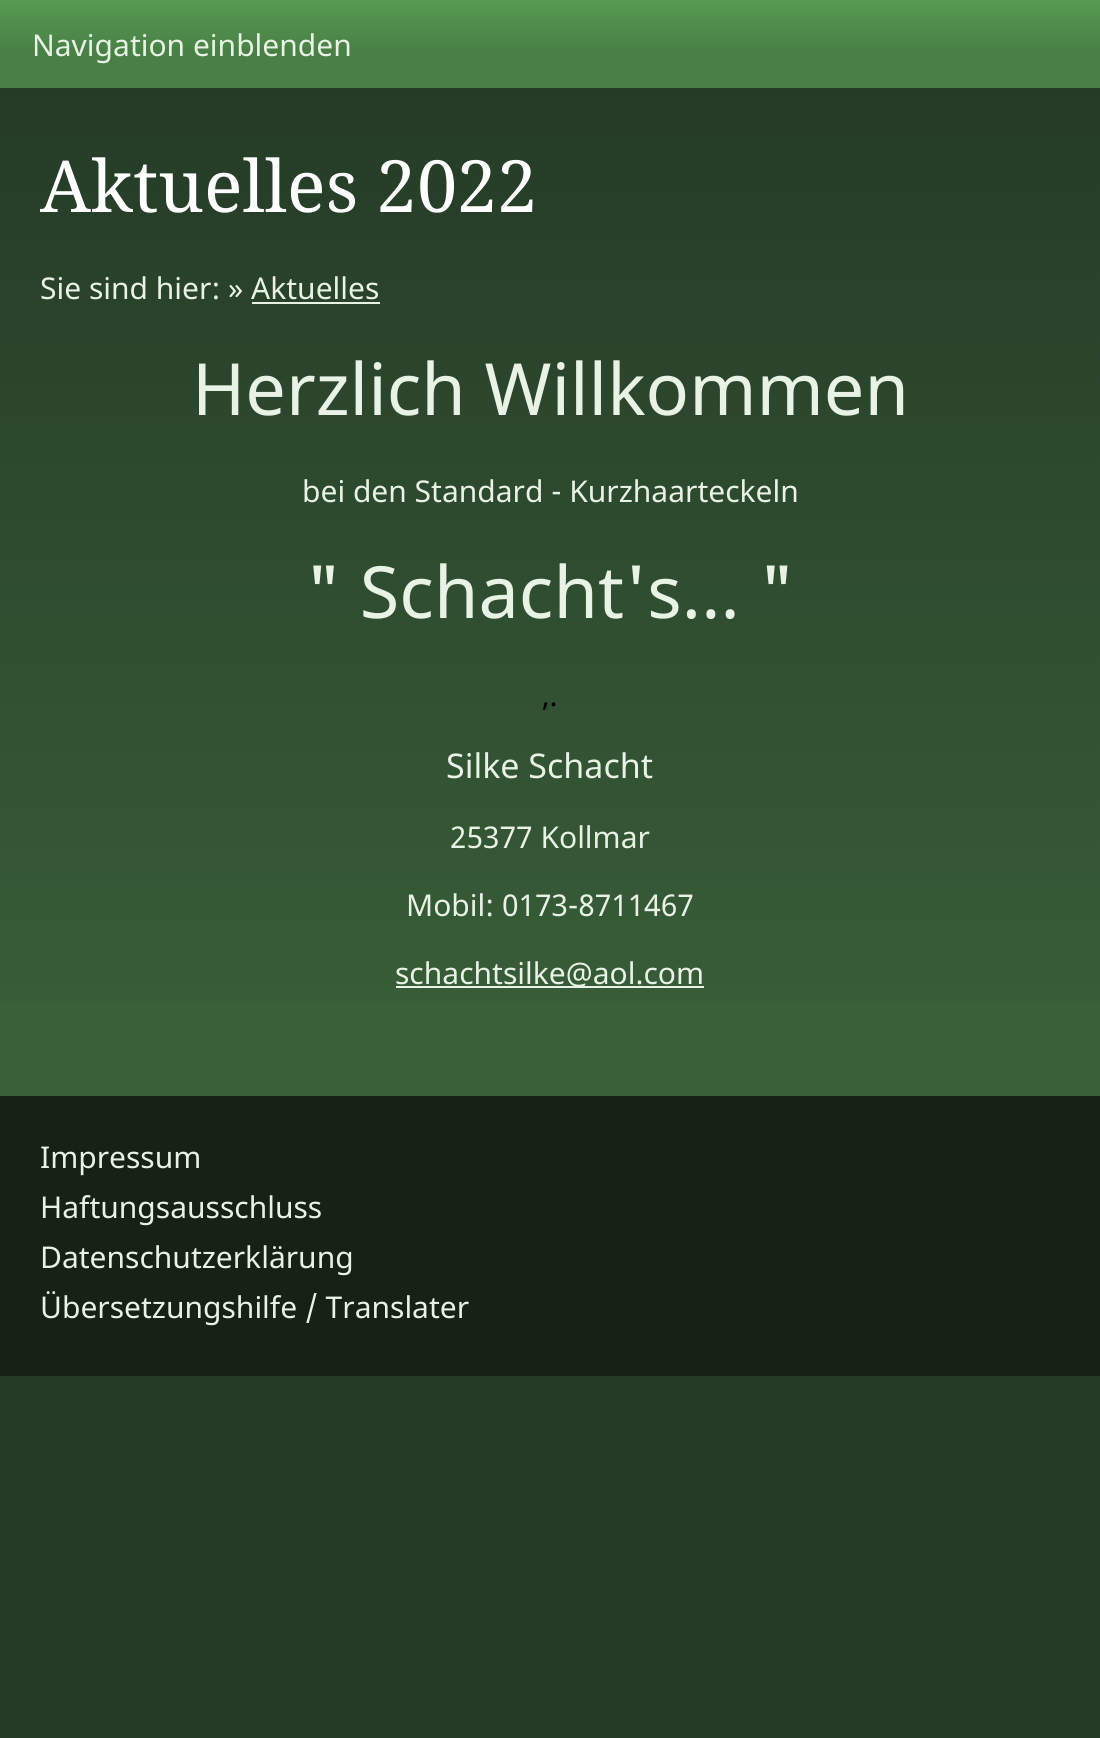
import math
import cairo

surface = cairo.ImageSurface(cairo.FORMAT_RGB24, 1100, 1738)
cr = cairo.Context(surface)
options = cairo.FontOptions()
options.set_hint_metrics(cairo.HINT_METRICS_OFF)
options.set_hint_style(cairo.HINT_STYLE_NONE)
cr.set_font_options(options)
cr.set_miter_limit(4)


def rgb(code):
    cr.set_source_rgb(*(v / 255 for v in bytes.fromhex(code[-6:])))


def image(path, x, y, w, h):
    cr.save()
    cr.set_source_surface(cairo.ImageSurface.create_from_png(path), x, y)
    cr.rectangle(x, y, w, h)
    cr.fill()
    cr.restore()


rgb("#253b26")
cr.paint()
rgb("#488045")
cr.rectangle(0, 47, 1100, 41)
cr.fill()
image("img/1.png", 0, 0, 1100, 47)
rgb("#3a603a")
cr.rectangle(0, 1001, 1100, 95)
cr.fill()
image("img/2.png", 0, 88, 1100, 913)
for x, y, w, h, color in [
    (252, 302, 128, 2, "#e8f2e5"),
    (396, 986, 308, 2, "#e8f2e5"),
    (0, 1096, 1100, 280, "#152215"),
]:
    rgb(color)
    cr.rectangle(x, y, w, h)
    cr.fill()
cr.select_font_face("Noto Sans")
cr.set_font_size(30)
rgb("#e8f2e5")
cr.move_to(32, 56)
cr.show_text("Navigation einblenden")
cr.select_font_face("Noto Serif")
cr.set_font_size(72)
rgb("#ffffff")
cr.move_to(40, 212)
cr.show_text("Aktuelles 2022")
cr.select_font_face("Noto Sans")
cr.set_font_size(30)
rgb("#e8f2e5")
cr.move_to(40, 299)
cr.show_text("Sie sind hier: » Aktuelles")
cr.set_font_size(72)
cr.move_to(192, 415)
cr.show_text("Herzlich Willkommen")
cr.set_font_size(30)
cr.move_to(302, 502)
cr.show_text("bei den Standard - Kurzhaarteckeln")
cr.set_font_size(72)
cr.move_to(305, 618)
cr.show_text("\" Schacht's... \"")
cr.set_font_size(30)
rgb("#000000")
cr.move_to(542, 706)
cr.show_text(",.")
cr.set_font_size(34)
rgb("#e8f2e5")
cr.move_to(446, 778)
cr.show_text("Silke Schacht")
cr.set_font_size(30)
for x, y, s in [
    (450, 848, "25377 Kollmar"),
    (406, 916, "Mobil: 0173-8711467"),
    (395, 984, "schachtsilke@aol.com"),
    (40, 1168, "Impressum"),
    (40, 1218, "Haftungsausschluss"),
    (40, 1268, "Datenschutzerklärung"),
    (40, 1318, "Übersetzungshilfe / Translater"),
]:
    cr.move_to(x, y)
    cr.show_text(s)
surface.write_to_png("page.png")
